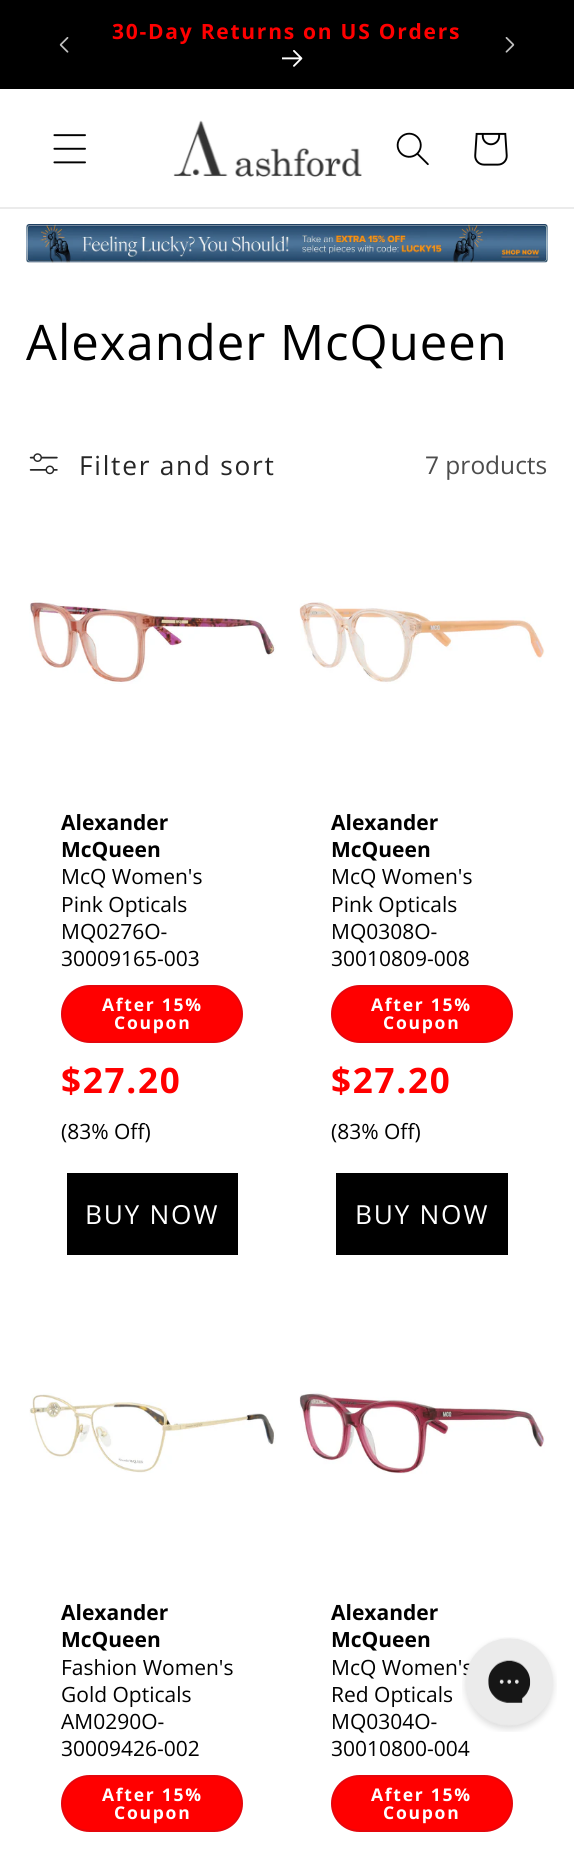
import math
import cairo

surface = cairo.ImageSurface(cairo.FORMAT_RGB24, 574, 1860)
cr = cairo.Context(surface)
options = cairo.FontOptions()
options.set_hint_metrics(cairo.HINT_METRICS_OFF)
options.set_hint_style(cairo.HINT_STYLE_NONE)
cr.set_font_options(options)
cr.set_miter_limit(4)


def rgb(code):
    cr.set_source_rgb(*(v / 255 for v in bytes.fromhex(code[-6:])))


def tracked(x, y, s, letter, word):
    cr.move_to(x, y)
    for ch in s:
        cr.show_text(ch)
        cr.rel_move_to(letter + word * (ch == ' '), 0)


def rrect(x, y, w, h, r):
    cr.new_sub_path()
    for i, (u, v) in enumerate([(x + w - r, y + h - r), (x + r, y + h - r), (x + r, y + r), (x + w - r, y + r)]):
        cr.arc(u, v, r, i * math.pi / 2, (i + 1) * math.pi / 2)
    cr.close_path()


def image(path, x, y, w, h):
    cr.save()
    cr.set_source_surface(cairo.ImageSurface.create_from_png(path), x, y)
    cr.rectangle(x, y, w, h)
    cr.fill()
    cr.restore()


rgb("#ffffff")
cr.paint()
rgb("#000000")
cr.rectangle(0, 0, 574, 89)
cr.fill()
image("img/1.png", 59, 37, 10, 16)
image("img/2.png", 282, 50, 21, 17)
image("img/3.png", 505, 37, 10, 16)
rgb("#ebebeb")
cr.rectangle(0, 207, 574, 2)
cr.fill()
image("img/4.png", 53, 134, 33, 30)
image("img/5.png", 173, 120, 189, 57)
image("img/6.png", 396, 132, 33, 34)
image("img/7.png", 474, 132, 34, 34)
image("img/8.png", 26, 224, 522, 39)
image("img/9.png", 29, 453, 29, 22)
image("img/10.png", 29, 600, 247, 84)
rgb("#ff0000")
rrect(61, 985, 182, 58, 29)
cr.fill()
rrect(62, 986, 180, 56, 28)
cr.set_source_rgba(0, 0.263, 0.49, 0.1)
cr.stroke()
rgb("#000000")
cr.rectangle(67, 1173, 171, 82)
cr.fill()
image("img/11.png", 299, 600, 246, 84)
rgb("#ff0000")
rrect(331, 985, 182, 58, 29)
cr.fill()
rrect(332, 986, 180, 56, 28)
cr.set_source_rgba(0, 0.263, 0.49, 0.1)
cr.stroke()
rgb("#000000")
cr.rectangle(336, 1173, 172, 82)
cr.fill()
image("img/12.png", 29, 1393, 247, 80)
rgb("#ff0000")
rrect(61, 1775, 182, 57, 28.5)
cr.fill()
rrect(62, 1776, 180, 55, 27.5)
cr.set_source_rgba(0, 0.263, 0.49, 0.1)
cr.stroke()
image("img/13.png", 299, 1391, 246, 83)
rgb("#ff0000")
rrect(331, 1775, 182, 57, 28.5)
cr.fill()
rrect(332, 1776, 180, 55, 27.5)
cr.set_source_rgba(0, 0.263, 0.49, 0.1)
cr.stroke()
cr.select_font_face("Open Sans", cairo.FONT_SLANT_NORMAL, cairo.FONT_WEIGHT_BOLD)
cr.set_font_size(21)
rgb("#ff0000")
tracked(112, 39, "30-Day Returns on US Orders", 1.75, 0)
cr.select_font_face("Open Sans")
cr.set_font_size(49)
rgb("#000000")
tracked(26, 360, "Alexander McQueen", 1, 0)
cr.set_font_size(26.25)
rgb("#262626")
tracked(79, 475, "Filter and sort", 1.75, 0)
cr.set_font_size(24.5)
rgb("#4d4d4d")
cr.move_to(425, 474)
cr.show_text("7 products")
cr.select_font_face("Open Sans", cairo.FONT_SLANT_NORMAL, cairo.FONT_WEIGHT_BOLD)
cr.set_font_size(21)
rgb("#000000")
cr.move_to(61, 830)
cr.show_text("Alexander")
cr.move_to(61, 857)
cr.show_text("McQueen")
cr.select_font_face("Open Sans")
for x, y, s in [
    (61, 884, "McQ Women's"),
    (61, 912, "Pink Opticals"),
    (61, 939, "MQ0276O-"),
    (61, 966, "30009165-003"),
]:
    cr.move_to(x, y)
    cr.show_text(s)
cr.select_font_face("Open Sans", cairo.FONT_SLANT_NORMAL, cairo.FONT_WEIGHT_BOLD)
cr.set_font_size(17.5)
rgb("#ffffff")
tracked(102, 1011, "After 15%", 1.75, 0)
tracked(114, 1029, "Coupon", 1.75, 0)
cr.set_font_size(35)
rgb("#ff0000")
tracked(61, 1093, "$27.20", 1.75, 0)
cr.select_font_face("Open Sans")
cr.set_font_size(21)
rgb("#000000")
cr.move_to(61, 1139)
cr.show_text("(83% Off)")
cr.set_font_size(26.25)
rgb("#ffffff")
tracked(85, 1224, "BUY NOW", 1.75, 0)
cr.select_font_face("Open Sans", cairo.FONT_SLANT_NORMAL, cairo.FONT_WEIGHT_BOLD)
cr.set_font_size(21)
rgb("#000000")
cr.move_to(331, 830)
cr.show_text("Alexander")
cr.move_to(331, 857)
cr.show_text("McQueen")
cr.select_font_face("Open Sans")
for x, y, s in [
    (331, 884, "McQ Women's"),
    (331, 912, "Pink Opticals"),
    (331, 939, "MQ0308O-"),
    (331, 966, "30010809-008"),
]:
    cr.move_to(x, y)
    cr.show_text(s)
cr.select_font_face("Open Sans", cairo.FONT_SLANT_NORMAL, cairo.FONT_WEIGHT_BOLD)
cr.set_font_size(17.5)
rgb("#ffffff")
tracked(371, 1011, "After 15%", 1.75, 0)
tracked(383, 1029, "Coupon", 1.75, 0)
cr.set_font_size(35)
rgb("#ff0000")
tracked(331, 1093, "$27.20", 1.75, 0)
cr.select_font_face("Open Sans")
cr.set_font_size(21)
rgb("#000000")
cr.move_to(331, 1139)
cr.show_text("(83% Off)")
cr.set_font_size(26.25)
rgb("#ffffff")
tracked(355, 1224, "BUY NOW", 1.75, 0)
cr.select_font_face("Open Sans", cairo.FONT_SLANT_NORMAL, cairo.FONT_WEIGHT_BOLD)
cr.set_font_size(21)
rgb("#000000")
cr.move_to(61, 1620)
cr.show_text("Alexander")
cr.move_to(61, 1647)
cr.show_text("McQueen")
cr.select_font_face("Open Sans")
for x, y, s in [
    (61, 1675, "Fashion Women's"),
    (61, 1702, "Gold Opticals"),
    (61, 1729, "AM0290O-"),
    (61, 1756, "30009426-002"),
]:
    cr.move_to(x, y)
    cr.show_text(s)
cr.select_font_face("Open Sans", cairo.FONT_SLANT_NORMAL, cairo.FONT_WEIGHT_BOLD)
cr.set_font_size(17.5)
rgb("#ffffff")
tracked(102, 1801, "After 15%", 1.75, 0)
tracked(114, 1819, "Coupon", 1.75, 0)
cr.set_font_size(21)
rgb("#000000")
cr.move_to(331, 1620)
cr.show_text("Alexander")
cr.move_to(331, 1647)
cr.show_text("McQueen")
cr.select_font_face("Open Sans")
for x, y, s in [
    (331, 1675, "McQ Women's"),
    (331, 1702, "Red Opticals"),
    (331, 1729, "MQ0304O-"),
    (331, 1756, "30010800-004"),
]:
    cr.move_to(x, y)
    cr.show_text(s)
cr.select_font_face("Open Sans", cairo.FONT_SLANT_NORMAL, cairo.FONT_WEIGHT_BOLD)
cr.set_font_size(17.5)
rgb("#ffffff")
tracked(371, 1801, "After 15%", 1.75, 0)
tracked(383, 1819, "Coupon", 1.75, 0)
image("img/14.png", 462, 1637, 95, 95)
surface.write_to_png("page.png")
